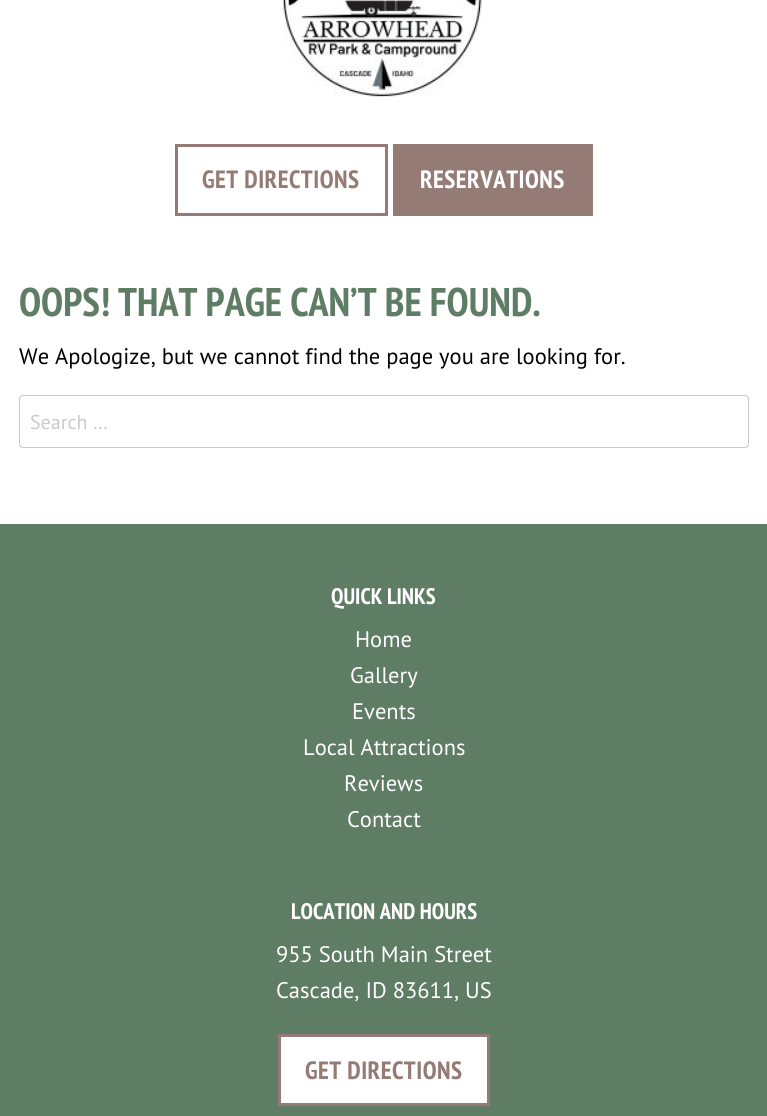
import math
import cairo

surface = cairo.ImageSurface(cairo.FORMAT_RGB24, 767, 1116)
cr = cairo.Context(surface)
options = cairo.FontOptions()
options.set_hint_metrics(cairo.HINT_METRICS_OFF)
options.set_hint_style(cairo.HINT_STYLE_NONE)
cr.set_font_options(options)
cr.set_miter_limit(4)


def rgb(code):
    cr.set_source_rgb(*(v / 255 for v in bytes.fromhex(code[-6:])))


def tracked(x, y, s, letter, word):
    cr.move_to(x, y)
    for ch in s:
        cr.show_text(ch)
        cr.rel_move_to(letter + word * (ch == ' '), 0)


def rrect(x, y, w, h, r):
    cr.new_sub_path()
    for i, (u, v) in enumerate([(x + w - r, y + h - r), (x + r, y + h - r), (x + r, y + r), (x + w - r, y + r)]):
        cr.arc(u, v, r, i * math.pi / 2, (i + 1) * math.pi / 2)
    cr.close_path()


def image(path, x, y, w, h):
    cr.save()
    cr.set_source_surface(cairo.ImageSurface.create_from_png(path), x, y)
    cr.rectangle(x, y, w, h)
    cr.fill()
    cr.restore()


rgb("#ffffff")
cr.paint()
image("img/1.png", 283, 0, 199, 97)
cr.rectangle(176.5, 145.5, 210, 69)
rgb("#947b75")
cr.set_line_width(3)
cr.stroke()
cr.rectangle(393, 144, 200, 72)
cr.fill()
rrect(19.5, 395.5, 729, 52, 3.5)
rgb("#cacaca")
cr.set_line_width(1)
cr.stroke()
rgb("#5f7c64")
cr.rectangle(0, 524, 767, 592)
cr.fill()
rgb("#ffffff")
cr.rectangle(279.5, 1035.5, 209, 69)
cr.fill_preserve()
rgb("#947b75")
cr.set_line_width(3)
cr.stroke()
cr.select_font_face("PT Sans Narrow", cairo.FONT_SLANT_NORMAL, cairo.FONT_WEIGHT_BOLD)
cr.set_font_size(25)
tracked(202, 188, "GET DIRECTIONS", 0.5, 0)
rgb("#ffffff")
tracked(420, 188, "RESERVATIONS", 0.5, 0)
cr.set_font_size(40)
rgb("#5f7c64")
cr.move_to(19, 316)
cr.show_text("OOPS! THAT PAGE CAN’T BE FOUND.")
cr.select_font_face("PT Sans")
cr.set_font_size(22.5)
rgb("#010101")
cr.move_to(19, 364)
cr.show_text("We Apologize, but we cannot find the page you are looking for.")
cr.set_font_size(20)
rgb("#cacaca")
cr.move_to(30, 429)
cr.show_text("Search …")
cr.select_font_face("PT Sans Narrow", cairo.FONT_SLANT_NORMAL, cairo.FONT_WEIGHT_BOLD)
cr.set_font_size(22.5)
rgb("#ffffff")
cr.move_to(331, 604)
cr.show_text("QUICK LINKS")
cr.select_font_face("PT Sans")
for x, y, s in [
    (355, 647, "Home"),
    (350, 683, "Gallery"),
    (352, 719, "Events"),
    (303, 755, "Local Attractions"),
    (344, 791, "Reviews"),
    (347, 827, "Contact"),
]:
    cr.move_to(x, y)
    cr.show_text(s)
cr.select_font_face("PT Sans Narrow", cairo.FONT_SLANT_NORMAL, cairo.FONT_WEIGHT_BOLD)
cr.move_to(291, 919)
cr.show_text("LOCATION AND HOURS")
cr.select_font_face("PT Sans")
cr.move_to(276, 962)
cr.show_text("955 South Main Street")
cr.move_to(276, 998)
cr.show_text("Cascade, ID 83611, US")
cr.select_font_face("PT Sans Narrow", cairo.FONT_SLANT_NORMAL, cairo.FONT_WEIGHT_BOLD)
cr.set_font_size(25)
rgb("#947b75")
tracked(305, 1079, "GET DIRECTIONS", 0.5, 0)
surface.write_to_png("page.png")
